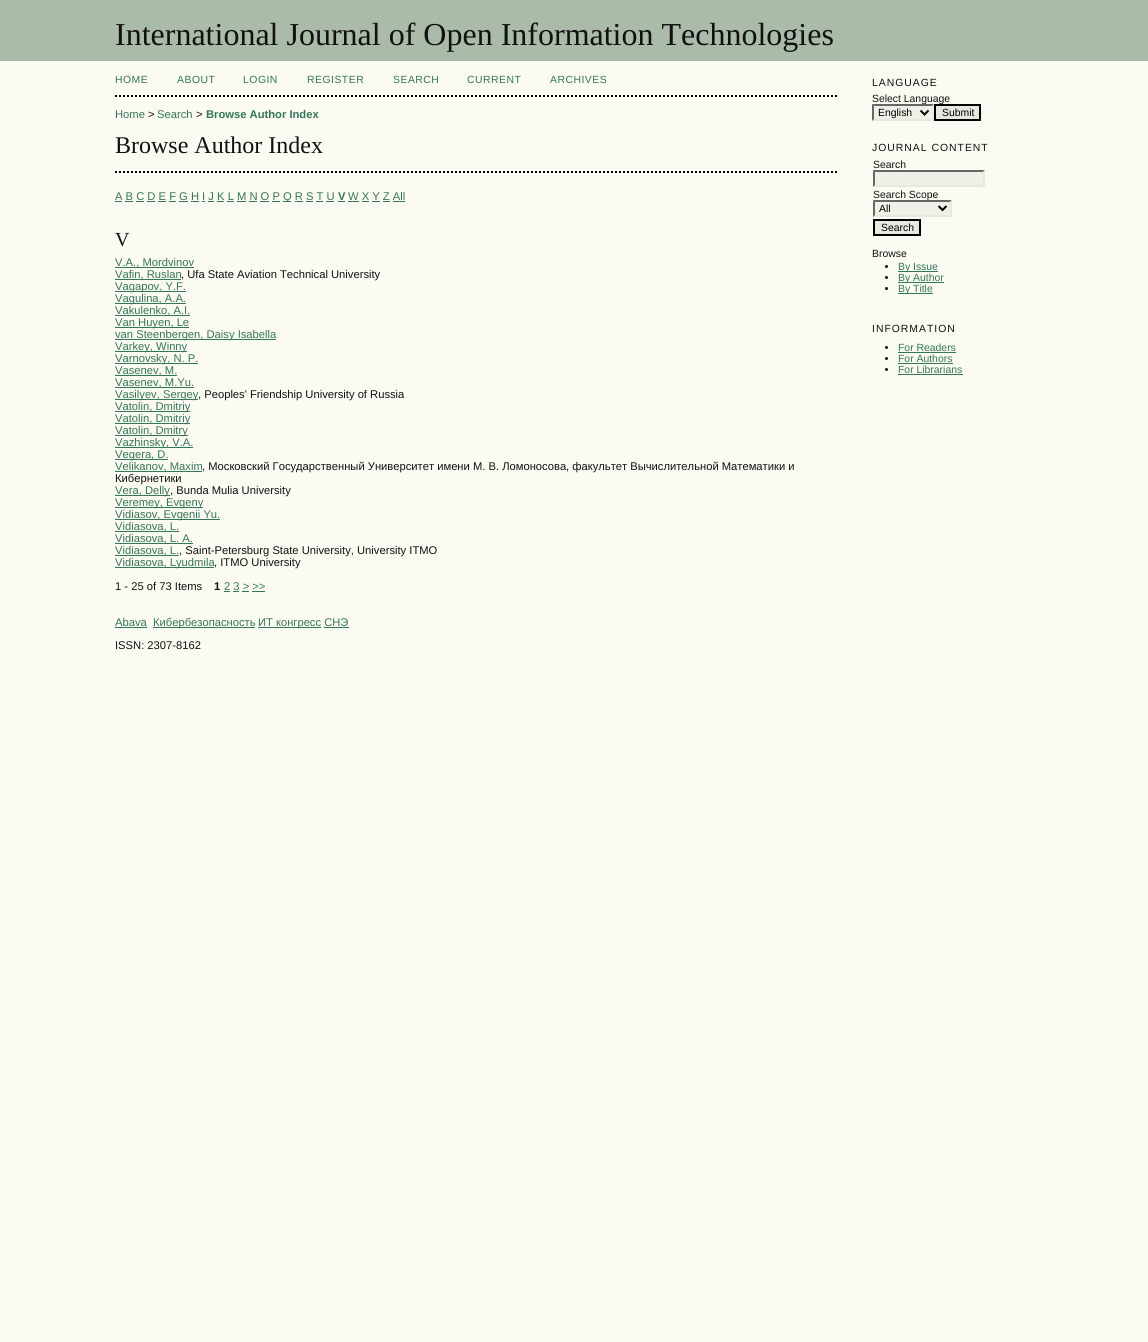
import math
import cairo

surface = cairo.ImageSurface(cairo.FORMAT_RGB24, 1148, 1342)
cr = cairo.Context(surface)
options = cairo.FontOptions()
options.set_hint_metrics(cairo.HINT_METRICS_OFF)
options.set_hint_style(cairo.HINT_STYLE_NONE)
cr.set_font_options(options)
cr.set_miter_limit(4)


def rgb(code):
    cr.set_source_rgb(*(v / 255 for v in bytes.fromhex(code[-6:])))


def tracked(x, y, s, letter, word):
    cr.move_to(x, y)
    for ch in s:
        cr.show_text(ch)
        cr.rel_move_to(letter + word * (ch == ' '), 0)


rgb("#fbfbf3")
cr.paint()
rgb("#aabbaa")
cr.rectangle(0, 0, 1148, 61)
cr.fill()
cr.new_path()
cr.move_to(115, 96)
cr.line_to(838, 96)
rgb("#000000")
cr.set_dash([2, 2])
cr.stroke()
cr.new_path()
cr.move_to(115, 172)
cr.line_to(838, 172)
cr.stroke()
for x, y, w, h, color in [
    (115, 201, 7, 1, "#337755"),
    (283, 201, 8, 1, "#337755"),
    (338, 201, 7, 1, "#337755"),
    (348, 201, 11, 1, "#337755"),
    (125, 201, 8, 1, "#337755"),
    (136, 201, 8, 1, "#337755"),
    (147, 201, 8, 1, "#337755"),
    (158, 201, 8, 1, "#337755"),
    (169, 201, 7, 1, "#337755"),
    (179, 201, 9, 1, "#337755"),
    (191, 201, 8, 1, "#337755"),
    (202, 201, 3, 1, "#337755"),
    (208, 201, 6, 1, "#337755"),
    (217, 201, 7, 1, "#337755"),
    (227, 201, 7, 1, "#337755"),
    (237, 201, 9, 1, "#337755"),
    (249, 201, 8, 1, "#337755"),
    (260, 201, 9, 1, "#337755"),
    (272, 201, 8, 1, "#337755"),
    (295, 201, 8, 1, "#337755"),
    (306, 201, 7, 1, "#337755"),
    (316, 201, 7, 1, "#337755"),
    (326, 201, 8, 1, "#337755"),
    (362, 201, 7, 1, "#337755"),
    (372, 201, 8, 1, "#337755"),
    (383, 201, 7, 1, "#337755"),
    (393, 201, 12, 1, "#337755"),
    (115, 267, 79, 1, "#337755"),
    (115, 279, 66, 1, "#337755"),
    (115, 291, 71, 1, "#337755"),
    (115, 303, 71, 1, "#337755"),
    (115, 315, 75, 1, "#337755"),
    (115, 327, 74, 1, "#337755"),
    (115, 339, 161, 1, "#337755"),
    (115, 351, 72, 1, "#337755"),
    (115, 363, 83, 1, "#337755"),
    (115, 375, 62, 1, "#337755"),
    (115, 387, 79, 1, "#337755"),
    (115, 399, 83, 1, "#337755"),
    (115, 411, 75, 1, "#337755"),
    (115, 423, 75, 1, "#337755"),
    (115, 435, 73, 1, "#337755"),
    (115, 447, 78, 1, "#337755"),
    (115, 459, 53, 1, "#337755"),
    (115, 471, 87, 1, "#337755"),
    (115, 495, 55, 1, "#337755"),
    (115, 507, 88, 1, "#337755"),
    (115, 519, 105, 1, "#337755"),
    (115, 531, 64, 1, "#337755"),
    (115, 543, 78, 1, "#337755"),
    (115, 555, 64, 1, "#337755"),
    (115, 567, 99, 1, "#337755"),
    (224, 591, 6, 1, "#337755"),
    (233, 591, 6, 1, "#337755"),
    (242, 591, 7, 1, "#337755"),
    (252, 591, 13, 1, "#337755"),
    (115, 627, 32, 1, "#337755"),
    (153, 627, 102, 1, "#337755"),
    (258, 627, 63, 1, "#337755"),
    (324, 627, 25, 1, "#337755"),
    (873, 170, 112, 17, "#f0f0e8"),
]:
    rgb(color)
    cr.rectangle(x, y, w, h)
    cr.fill()
rgb("#666666")
cr.new_path()
cr.move_to(873, 170)
cr.line_to(985, 170)
cr.line_to(983, 172)
cr.line_to(875, 172)
cr.close_path()
cr.fill()
rgb("#e8e8e1")
cr.new_path()
cr.move_to(985, 170)
cr.line_to(985, 187)
cr.line_to(983, 185)
cr.line_to(983, 172)
cr.close_path()
cr.fill()
cr.new_path()
cr.move_to(985, 187)
cr.line_to(873, 187)
cr.line_to(875, 185)
cr.line_to(983, 185)
cr.close_path()
cr.fill()
rgb("#666666")
cr.new_path()
cr.move_to(873, 187)
cr.line_to(873, 170)
cr.line_to(875, 172)
cr.line_to(875, 185)
cr.close_path()
cr.fill()
rgb("#e8e8e1")
cr.rectangle(874, 220, 46, 15)
cr.fill_preserve()
rgb("#000000")
cr.set_dash([])
cr.stroke()
rgb("#111111")
cr.arc(886.5, 266.5, 1.5, 0, 2 * math.pi)
cr.fill()
rgb("#337755")
cr.rectangle(898, 271, 40, 1)
cr.fill()
rgb("#111111")
cr.arc(886.5, 277.5, 1.5, 0, 2 * math.pi)
cr.fill()
rgb("#337755")
cr.rectangle(898, 282, 46, 1)
cr.fill()
rgb("#111111")
cr.arc(886.5, 288.5, 1.5, 0, 2 * math.pi)
cr.fill()
rgb("#337755")
cr.rectangle(898, 293, 35, 1)
cr.fill()
rgb("#111111")
cr.arc(886.5, 347.5, 1.5, 0, 2 * math.pi)
cr.fill()
rgb("#337755")
cr.rectangle(898, 352, 58, 1)
cr.fill()
rgb("#111111")
cr.arc(886.5, 358.5, 1.5, 0, 2 * math.pi)
cr.fill()
rgb("#337755")
cr.rectangle(898, 363, 55, 1)
cr.fill()
rgb("#111111")
cr.arc(886.5, 369.5, 1.5, 0, 2 * math.pi)
cr.fill()
rgb("#337755")
cr.rectangle(898, 374, 65, 1)
cr.fill()
cr.select_font_face("Liberation Serif")
cr.set_font_size(32)
rgb("#111111")
cr.move_to(115, 45)
cr.show_text("International Journal of Open Information Technologies")
cr.select_font_face("Liberation Sans")
cr.set_font_size(10.4)
rgb("#337755")
for x, y, s in [
    (115, 83, "HOME"),
    (177, 83, "ABOUT"),
    (243, 83, "LOGIN"),
    (307, 83, "REGISTER"),
    (393, 83, "SEARCH"),
    (467, 83, "CURRENT"),
    (550, 83, "ARCHIVES"),
]:
    tracked(x, y, s, 0.5, 0)
cr.set_font_size(11.2)
cr.move_to(115, 118)
cr.show_text("Home")
rgb("#111111")
cr.move_to(148, 118)
cr.show_text(">")
rgb("#337755")
cr.move_to(157, 118)
cr.show_text("Search")
rgb("#111111")
cr.move_to(196, 118)
cr.show_text(">")
cr.select_font_face("Liberation Sans", cairo.FONT_SLANT_NORMAL, cairo.FONT_WEIGHT_BOLD)
rgb("#337755")
cr.move_to(206, 118)
cr.show_text("Browse Author Index")
cr.select_font_face("Liberation Serif")
cr.set_font_size(24)
rgb("#111111")
cr.move_to(115, 153)
cr.show_text("Browse Author Index")
cr.select_font_face("Liberation Sans")
cr.set_font_size(11.2)
rgb("#337755")
cr.move_to(115, 200)
cr.show_text("A B C D E F G H I J K L M N O P")
cr.move_to(283, 200)
cr.show_text("Q R S T U")
cr.select_font_face("Liberation Sans", cairo.FONT_SLANT_NORMAL, cairo.FONT_WEIGHT_BOLD)
cr.move_to(338, 200)
cr.show_text("V")
cr.select_font_face("Liberation Sans")
cr.move_to(348, 200)
cr.show_text("W X Y Z All")
cr.select_font_face("Liberation Serif")
cr.set_font_size(20)
rgb("#111111")
cr.move_to(115, 246)
cr.show_text("V")
cr.select_font_face("Liberation Sans")
cr.set_font_size(11.2)
rgb("#337755")
cr.move_to(115, 266)
cr.show_text("V.A., Mordvinov")
cr.move_to(115, 278)
cr.show_text("Vafin, Ruslan")
rgb("#111111")
cr.move_to(181, 278)
cr.show_text(", Ufa State Aviation Technical University")
rgb("#337755")
for x, y, s in [
    (115, 290, "Vagapov, Y.F."),
    (115, 302, "Vagulina, A.A."),
    (115, 314, "Vakulenko, A.I."),
    (115, 326, "Van Huyen, Le"),
    (115, 338, "van Steenbergen, Daisy Isabella"),
    (115, 350, "Varkey, Winny"),
    (115, 362, "Varnovsky, N. P."),
    (115, 374, "Vasenev, M."),
    (115, 386, "Vasenev, M.Yu."),
    (115, 398, "Vasilyev, Sergey"),
]:
    cr.move_to(x, y)
    cr.show_text(s)
rgb("#111111")
cr.move_to(198, 398)
cr.show_text(", Peoples' Friendship University of Russia")
rgb("#337755")
for x, y, s in [
    (115, 410, "Vatolin, Dmitriy"),
    (115, 422, "Vatolin, Dmitriy"),
    (115, 434, "Vatolin, Dmitry"),
    (115, 446, "Vazhinsky, V.A."),
    (115, 458, "Vegera, D."),
    (115, 470, "Velikanov, Maxim"),
]:
    cr.move_to(x, y)
    cr.show_text(s)
rgb("#111111")
cr.move_to(202, 470)
cr.show_text(", Московский Государственный Университет имени М. В. Ломоносова, факультет Вычислительной Математики и")
cr.move_to(115, 482)
cr.show_text("Кибернетики")
rgb("#337755")
cr.move_to(115, 494)
cr.show_text("Vera, Delly")
rgb("#111111")
cr.move_to(170, 494)
cr.show_text(", Bunda Mulia University")
rgb("#337755")
for x, y, s in [
    (115, 506, "Veremey, Evgeny"),
    (115, 518, "Vidiasov, Evgenii Yu."),
    (115, 530, "Vidiasova, L."),
    (115, 542, "Vidiasova, L. A."),
    (115, 554, "Vidiasova, L."),
]:
    cr.move_to(x, y)
    cr.show_text(s)
rgb("#111111")
cr.move_to(179, 554)
cr.show_text(", Saint-Petersburg State University, University ITMO")
rgb("#337755")
cr.move_to(115, 566)
cr.show_text("Vidiasova, Lyudmila")
rgb("#111111")
cr.move_to(214, 566)
cr.show_text(", ITMO University")
cr.move_to(115, 590)
cr.show_text("1 - 25 of 73 Items")
cr.select_font_face("Liberation Sans", cairo.FONT_SLANT_NORMAL, cairo.FONT_WEIGHT_BOLD)
cr.move_to(214, 590)
cr.show_text("1")
cr.select_font_face("Liberation Sans")
rgb("#337755")
for x, y, s in [
    (224, 590, "2 3 > >>"),
    (115, 626, "Abava"),
    (153, 626, "Кибербезопасность"),
    (258, 626, "ИТ конгресс СНЭ"),
]:
    cr.move_to(x, y)
    cr.show_text(s)
rgb("#111111")
cr.move_to(115, 649)
cr.show_text("ISSN: 2307-8162")
cr.set_font_size(10.4)
tracked(872, 86, "LANGUAGE", 1, 0)
cr.move_to(872, 102)
cr.show_text("Select Language")
rgb("#f0f0e8")
cr.rectangle(872, 104, 62, 17)
cr.fill()
rgb("#666666")
cr.new_path()
cr.move_to(872, 104)
cr.line_to(934, 104)
cr.line_to(932, 106)
cr.line_to(874, 106)
cr.close_path()
cr.fill()
rgb("#e8e8e1")
cr.new_path()
cr.move_to(934, 104)
cr.line_to(934, 121)
cr.line_to(932, 119)
cr.line_to(932, 106)
cr.close_path()
cr.fill()
cr.new_path()
cr.move_to(934, 121)
cr.line_to(872, 121)
cr.line_to(874, 119)
cr.line_to(932, 119)
cr.close_path()
cr.fill()
rgb("#666666")
cr.new_path()
cr.move_to(872, 121)
cr.line_to(872, 104)
cr.line_to(874, 106)
cr.line_to(874, 119)
cr.close_path()
cr.fill()
cr.new_path()
cr.move_to(920.5, 110.5)
cr.line_to(924.5, 114.5)
cr.line_to(928.5, 110.5)
rgb("#000000")
cr.stroke()
cr.move_to(878, 116)
cr.show_text("English")
rgb("#e8e8e1")
cr.rectangle(935, 105, 45, 15)
cr.fill_preserve()
rgb("#000000")
cr.stroke()
cr.move_to(942, 116)
cr.show_text("Submit")
rgb("#111111")
tracked(872, 151, "JOURNAL CONTENT", 1, 0)
cr.move_to(873, 168)
cr.show_text("Search")
cr.move_to(873, 198)
cr.show_text("Search Scope")
rgb("#f0f0e8")
cr.rectangle(873, 200, 79, 17)
cr.fill()
rgb("#666666")
cr.new_path()
cr.move_to(873, 200)
cr.line_to(952, 200)
cr.line_to(950, 202)
cr.line_to(875, 202)
cr.close_path()
cr.fill()
rgb("#e8e8e1")
cr.new_path()
cr.move_to(952, 200)
cr.line_to(952, 217)
cr.line_to(950, 215)
cr.line_to(950, 202)
cr.close_path()
cr.fill()
cr.new_path()
cr.move_to(952, 217)
cr.line_to(873, 217)
cr.line_to(875, 215)
cr.line_to(950, 215)
cr.close_path()
cr.fill()
rgb("#666666")
cr.new_path()
cr.move_to(873, 217)
cr.line_to(873, 200)
cr.line_to(875, 202)
cr.line_to(875, 215)
cr.close_path()
cr.fill()
cr.new_path()
cr.move_to(938.5, 206)
cr.line_to(942.5, 210)
cr.line_to(946.5, 206)
rgb("#000000")
cr.stroke()
cr.move_to(879, 212)
cr.show_text("All")
cr.move_to(881, 231)
cr.show_text("Search")
rgb("#111111")
cr.move_to(872, 257)
cr.show_text("Browse")
rgb("#337755")
for x, y, s in [
    (898, 270, "By Issue"),
    (898, 281, "By Author"),
    (898, 292, "By Title"),
]:
    cr.move_to(x, y)
    cr.show_text(s)
rgb("#111111")
tracked(872, 332, "INFORMATION", 1, 0)
rgb("#337755")
for x, y, s in [
    (898, 351, "For Readers"),
    (898, 362, "For Authors"),
    (898, 373, "For Librarians"),
]:
    cr.move_to(x, y)
    cr.show_text(s)
surface.write_to_png("page.png")
